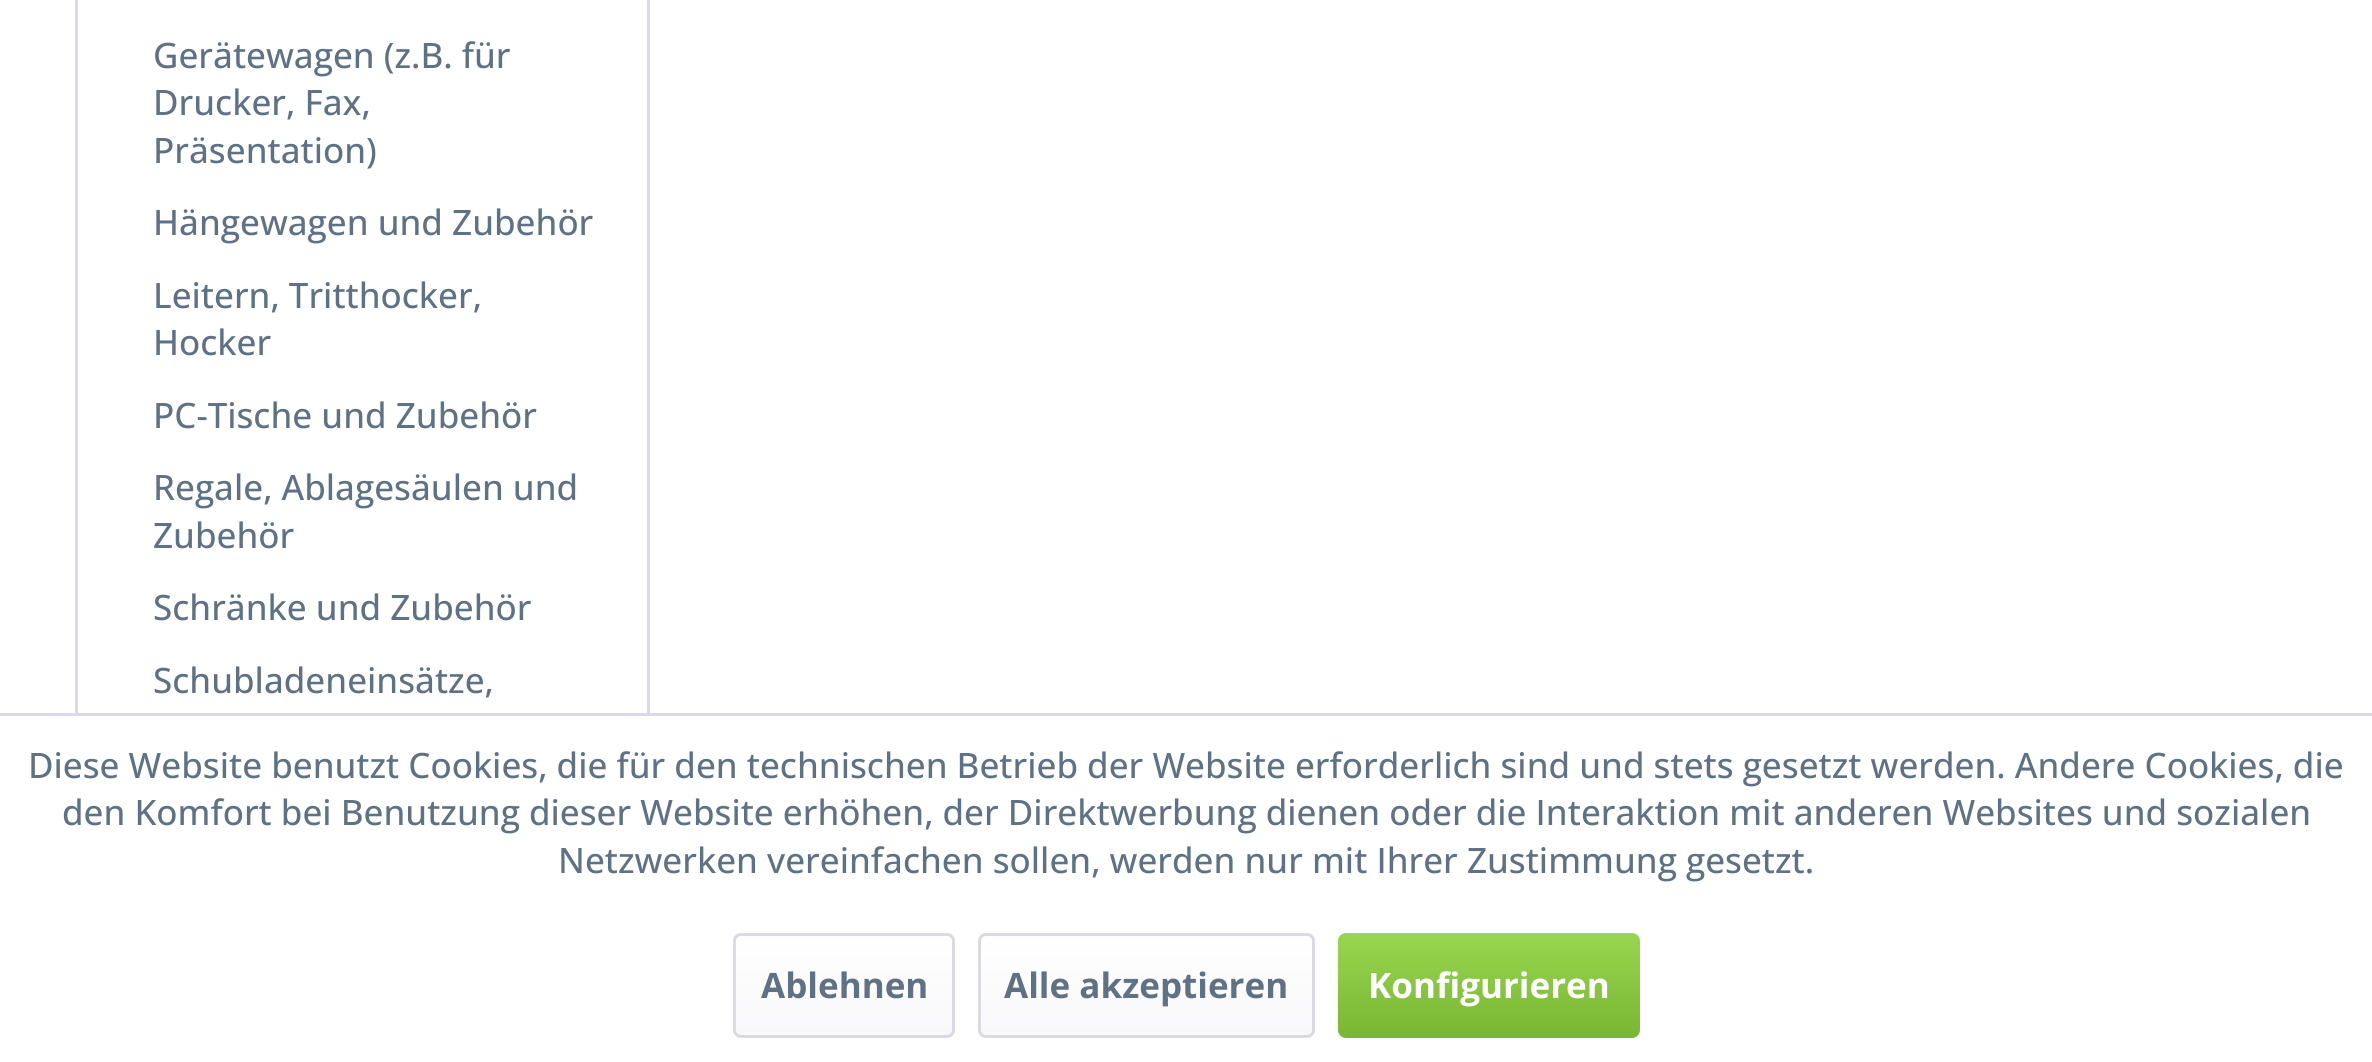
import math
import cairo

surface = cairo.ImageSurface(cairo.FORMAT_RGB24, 2372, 1062)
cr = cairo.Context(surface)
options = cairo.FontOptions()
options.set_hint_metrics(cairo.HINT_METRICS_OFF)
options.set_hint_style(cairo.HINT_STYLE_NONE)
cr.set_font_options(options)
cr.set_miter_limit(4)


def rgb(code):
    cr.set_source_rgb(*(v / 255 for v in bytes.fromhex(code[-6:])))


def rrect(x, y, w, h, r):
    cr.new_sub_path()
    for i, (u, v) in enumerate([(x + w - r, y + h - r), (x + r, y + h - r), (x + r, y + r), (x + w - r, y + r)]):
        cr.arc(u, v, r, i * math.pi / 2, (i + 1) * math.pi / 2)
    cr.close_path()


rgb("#ffffff")
cr.paint()
cr.rectangle(76.5, -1.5, 572, 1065)
rgb("#dadae5")
cr.set_line_width(3)
cr.stroke()
rgb("#ffffff")
cr.rectangle(75, 716, 575, 346)
cr.fill()
rgb("#dadae5")
cr.rectangle(0, 713, 2372, 3)
cr.fill()
gradient = cairo.LinearGradient(844, 935, 844, 1035)
gradient.add_color_stop_rgba(0, 1, 1, 1, 1)
gradient.add_color_stop_rgba(1, 0.973, 0.973, 0.98, 1)
cr.set_source(gradient)
rrect(735, 935, 218, 100, 5)
cr.fill()
rrect(734.5, 934.5, 219, 102, 6.5)
rgb("#dadae5")
cr.stroke()
gradient = cairo.LinearGradient(1146, 935, 1146, 1035)
gradient.add_color_stop_rgba(0, 1, 1, 1, 1)
gradient.add_color_stop_rgba(1, 0.973, 0.973, 0.98, 1)
cr.set_source(gradient)
rrect(980, 935, 333, 100, 5)
cr.fill()
rrect(979.5, 934.5, 334, 102, 6.5)
rgb("#dadae5")
cr.stroke()
gradient = cairo.LinearGradient(1489, 933, 1489, 1038)
gradient.add_color_stop_rgba(0, 0.596, 0.839, 0.314, 1)
gradient.add_color_stop_rgba(1, 0.475, 0.714, 0.196, 1)
cr.set_source(gradient)
rrect(1338, 933, 302, 105, 8)
cr.fill()
cr.select_font_face("Open Sans Medium")
cr.set_font_size(35)
rgb("#5f7285")
for x, y, s in [
    (153, 68, "Gerätewagen (z.B. für"),
    (153, 115, "Drucker, Fax,"),
    (153, 163, "Präsentation)"),
    (153, 235, "Hängewagen und Zubehör"),
    (153, 308, "Leitern, Tritthocker,"),
    (153, 355, "Hocker"),
    (153, 428, "PC-Tische und Zubehör"),
    (153, 500, "Regale, Ablagesäulen und"),
    (153, 548, "Zubehör"),
    (153, 620, "Schränke und Zubehör"),
    (153, 693, "Schubladeneinsätze,"),
    (28, 778, "Diese Website benutzt Cookies, die für den technischen Betrieb der Website erforderlich sind und stets gesetzt werden. Andere Cookies, die"),
    (62, 825, "den Komfort bei Benutzung dieser Website erhöhen, der Direktwerbung dienen oder die Interaktion mit anderen Websites und sozialen"),
    (558, 873, "Netzwerken vereinfachen sollen, werden nur mit Ihrer Zustimmung gesetzt."),
]:
    cr.move_to(x, y)
    cr.show_text(s)
cr.select_font_face("Open Sans", cairo.FONT_SLANT_NORMAL, cairo.FONT_WEIGHT_BOLD)
cr.move_to(761, 998)
cr.show_text("Ablehnen")
cr.move_to(1004, 998)
cr.show_text("Alle akzeptieren")
rgb("#ffffff")
cr.move_to(1368, 998)
cr.show_text("Konfigurieren")
surface.write_to_png("page.png")
